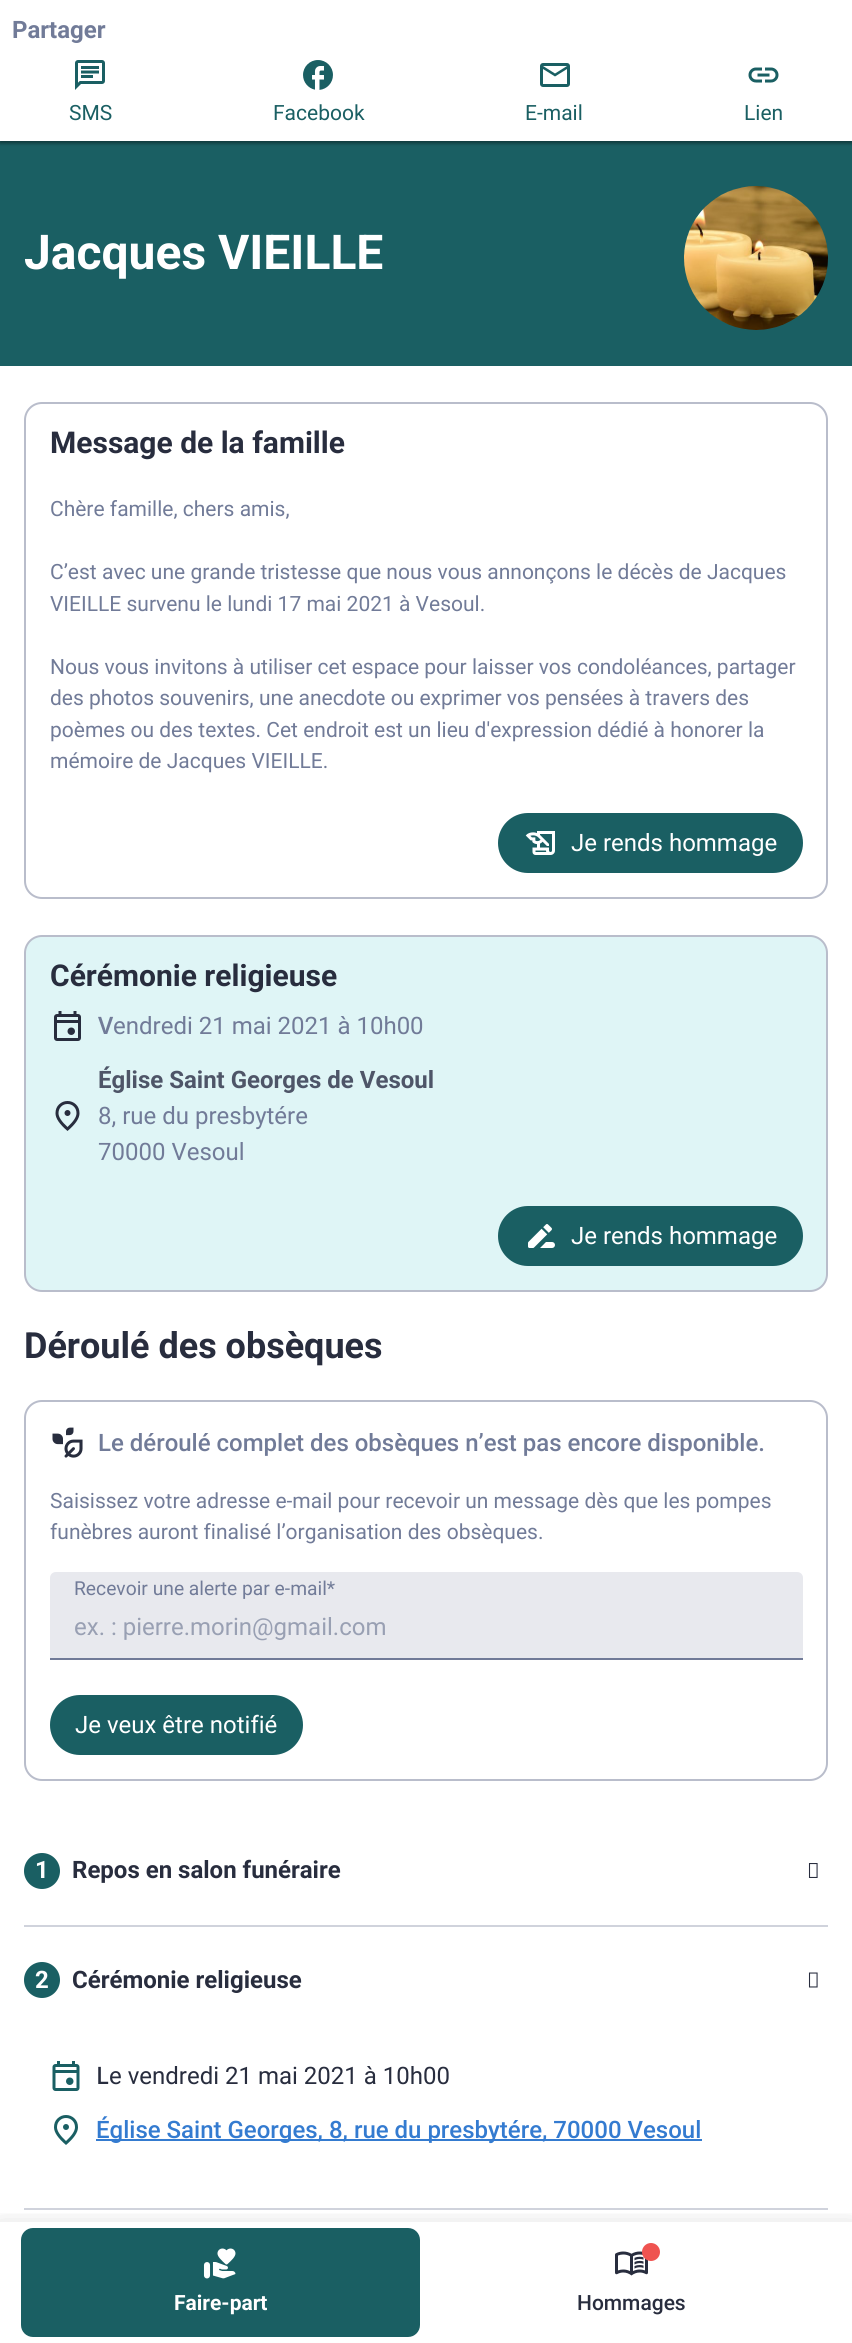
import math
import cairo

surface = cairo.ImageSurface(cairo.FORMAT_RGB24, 852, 2343)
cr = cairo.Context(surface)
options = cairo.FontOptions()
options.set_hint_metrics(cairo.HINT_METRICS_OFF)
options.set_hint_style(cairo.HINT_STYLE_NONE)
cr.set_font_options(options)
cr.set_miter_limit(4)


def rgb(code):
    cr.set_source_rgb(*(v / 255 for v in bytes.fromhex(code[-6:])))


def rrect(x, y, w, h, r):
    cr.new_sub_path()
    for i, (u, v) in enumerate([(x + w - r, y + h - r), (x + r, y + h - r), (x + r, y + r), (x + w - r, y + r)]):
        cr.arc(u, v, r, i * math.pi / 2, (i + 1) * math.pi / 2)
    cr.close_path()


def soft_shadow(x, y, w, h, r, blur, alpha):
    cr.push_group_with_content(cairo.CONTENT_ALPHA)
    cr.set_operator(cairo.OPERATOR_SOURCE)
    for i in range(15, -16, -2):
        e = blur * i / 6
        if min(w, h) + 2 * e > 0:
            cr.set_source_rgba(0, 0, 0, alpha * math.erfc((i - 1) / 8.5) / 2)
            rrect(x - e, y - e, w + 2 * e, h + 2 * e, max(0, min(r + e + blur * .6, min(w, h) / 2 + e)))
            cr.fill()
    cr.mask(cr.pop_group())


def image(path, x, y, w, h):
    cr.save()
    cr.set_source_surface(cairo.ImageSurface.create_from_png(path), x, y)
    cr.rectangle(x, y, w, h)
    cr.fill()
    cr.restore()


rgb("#ffffff")
cr.paint()
rgb("#1a5f63")
cr.rectangle(0, 141, 852, 225)
cr.fill()
rgb("#000000")
soft_shadow(-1, 0, 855, 144, 0, 2, 0.15)
soft_shadow(0, 2, 852, 141, 0, 1.5, 0.3)
rgb("#ffffff")
cr.rectangle(0, 0, 852, 141)
cr.fill()
image("img/1.png", 75, 60, 30, 30)
image("img/2.png", 303, 60, 30, 30)
image("img/3.png", 540, 63, 30, 24)
image("img/4.png", 748, 67, 31, 16)
image("img/5.png", 684, 186, 144, 144)
rrect(25, 403, 802, 495, 17)
rgb("#b9bdcb")
cr.stroke()
rgb("#1a5f63")
rrect(499, 814, 303, 58, 29)
cr.fill_preserve()
cr.stroke()
image("img/6.png", 525, 831, 30, 24)
rgb("#dff5f6")
rrect(25, 936, 802, 355, 17)
cr.fill_preserve()
rgb("#b9bdcb")
cr.stroke()
image("img/7.png", 54, 1011, 27, 30)
image("img/8.png", 55, 1101, 25, 30)
rgb("#1a5f63")
rrect(499, 1207, 303, 58, 29)
cr.fill_preserve()
cr.stroke()
image("img/9.png", 528, 1224, 27, 24)
rrect(25, 1401, 802, 379, 17)
rgb("#b9bdcb")
cr.stroke()
image("img/10.png", 52, 1427, 31, 31)
rgb("#e8e9ee")
cr.new_path()
cr.move_to(56, 1572)
cr.line_to(797, 1572)
cr.curve_to(800.5, 1572, 803, 1574.5, 803, 1578)
cr.line_to(803, 1659)
cr.line_to(50, 1659)
cr.line_to(50, 1578)
cr.curve_to(50, 1574.5, 52.5, 1572, 56, 1572)
cr.close_path()
cr.fill()
rgb("#717b98")
cr.rectangle(50, 1658, 753, 2)
cr.fill()
rgb("#1a5f63")
rrect(51, 1696, 251, 58, 29)
cr.fill_preserve()
cr.stroke()
cr.arc(42, 1871, 18, 0, 2 * math.pi)
cr.fill()
image("img/11.png", 808, 1863, 10, 15)
rgb("#d0d3dc")
cr.rectangle(24, 1925, 804, 2)
cr.fill()
rgb("#1a5f63")
cr.arc(42, 1980, 18, 0, 2 * math.pi)
cr.fill()
image("img/12.png", 808, 1972, 10, 16)
image("img/13.png", 52, 2061, 28, 30)
image("img/14.png", 54, 2115, 24, 30)
rgb("#347bd0")
cr.rectangle(96, 2139, 606, 2)
cr.fill()
rgb("#d0d3dc")
cr.rectangle(24, 2208, 804, 2)
cr.fill()
cr.save()
cr.rectangle(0, 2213, 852, 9)
cr.clip()
rgb("#000000")
soft_shadow(0, 2228, 852, 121, 0, 12, 0.2)
cr.restore()
rgb("#1a5f63")
rrect(21, 2228, 399, 109, 12)
cr.fill()
image("img/15.png", 203, 2248, 33, 31)
image("img/16.png", 615, 2251, 33, 25)
rgb("#ef5350")
cr.arc(651, 2252, 9, 0, 2 * math.pi)
cr.fill()
cr.select_font_face("Roboto", cairo.FONT_SLANT_NORMAL, cairo.FONT_WEIGHT_BOLD)
cr.set_font_size(24)
rgb("#717b98")
cr.move_to(12, 38)
cr.show_text("Partager")
cr.select_font_face("Roboto")
cr.set_font_size(21)
rgb("#1a5f63")
for x, y, s in [
    (69, 120, "SMS"),
    (273, 120, "Facebook"),
    (525, 120, "E-mail"),
    (744, 120, "Lien"),
]:
    cr.move_to(x, y)
    cr.show_text(s)
cr.select_font_face("Roboto", cairo.FONT_SLANT_NORMAL, cairo.FONT_WEIGHT_BOLD)
cr.set_font_size(48)
rgb("#ffffff")
cr.move_to(24, 269)
cr.show_text("Jacques VIEILLE")
cr.set_font_size(30)
rgb("#282d3e")
cr.move_to(50, 453)
cr.show_text("Message de la famille")
cr.select_font_face("Roboto")
cr.set_font_size(21)
rgb("#717b98")
for x, y, s in [
    (50, 516, "Chère famille, chers amis,"),
    (50, 579, "C’est avec une grande tristesse que nous vous annonçons le décès de Jacques"),
    (50, 611, "VIEILLE survenu le lundi 17 mai 2021 à Vesoul."),
    (50, 674, "Nous vous invitons à utiliser cet espace pour laisser vos condoléances, partager"),
    (50, 705, "des photos souvenirs, une anecdote ou exprimer vos pensées à travers des"),
    (50, 737, "poèmes ou des textes. Cet endroit est un lieu d'expression dédié à honorer la"),
    (50, 768, "mémoire de Jacques VIEILLE."),
]:
    cr.move_to(x, y)
    cr.show_text(s)
cr.set_font_size(24)
rgb("#ffffff")
cr.move_to(571, 851)
cr.show_text("Je rends hommage")
cr.select_font_face("Roboto", cairo.FONT_SLANT_NORMAL, cairo.FONT_WEIGHT_BOLD)
cr.set_font_size(30)
rgb("#282d3e")
cr.move_to(50, 986)
cr.show_text("Cérémonie religieuse")
cr.select_font_face("Noto Sans SemiBold")
cr.set_font_size(24)
rgb("#717b98")
cr.move_to(98, 1034)
cr.show_text("V")
cr.select_font_face("Roboto")
cr.move_to(113, 1034)
cr.show_text("endredi 21 mai 2021 à 10h00")
cr.select_font_face("Roboto", cairo.FONT_SLANT_NORMAL, cairo.FONT_WEIGHT_BOLD)
rgb("#4e5568")
cr.move_to(98, 1088)
cr.show_text("Église Saint Georges de Vesoul")
cr.select_font_face("Roboto")
rgb("#717b98")
cr.move_to(98, 1124)
cr.show_text("8, rue du presbytére")
cr.move_to(98, 1160)
cr.show_text("70000 Vesoul")
rgb("#ffffff")
cr.move_to(571, 1244)
cr.show_text("Je rends hommage")
cr.select_font_face("Roboto", cairo.FONT_SLANT_NORMAL, cairo.FONT_WEIGHT_BOLD)
cr.set_font_size(36)
rgb("#282d3e")
cr.move_to(24, 1358)
cr.show_text("Déroulé des obsèques")
cr.select_font_face("Roboto Medium")
cr.set_font_size(24)
rgb("#717b98")
cr.move_to(98, 1451)
cr.show_text("Le déroulé complet des obsèques n’est pas encore disponible.")
cr.select_font_face("Roboto")
cr.set_font_size(21)
cr.move_to(50, 1508)
cr.show_text("Saisissez votre adresse e-mail pour recevoir un message dès que les pompes")
cr.move_to(50, 1539)
cr.show_text("funèbres auront finalisé l’organisation des obsèques.")
cr.set_font_size(19.25)
cr.move_to(74, 1595)
cr.show_text("Recevoir une alerte par e-mail*")
cr.set_font_size(24)
rgb("#99a0b3")
cr.move_to(74, 1635)
cr.show_text("ex. : pierre.morin@gmail.com")
rgb("#ffffff")
cr.move_to(75, 1733)
cr.show_text("Je veux être notifié")
cr.select_font_face("Roboto", cairo.FONT_SLANT_NORMAL, cairo.FONT_WEIGHT_BOLD)
cr.move_to(35, 1878)
cr.show_text("1")
rgb("#282d3e")
cr.move_to(72, 1878)
cr.show_text("Repos en salon funéraire")
rgb("#ffffff")
cr.move_to(35, 1988)
cr.show_text("2")
rgb("#282d3e")
cr.move_to(72, 1988)
cr.show_text("Cérémonie religieuse")
cr.select_font_face("Noto Sans Medium")
cr.move_to(96, 2084)
cr.show_text("L")
cr.select_font_face("Roboto")
cr.move_to(109, 2084)
cr.show_text("e vendredi 21 mai 2021 à 10h00")
cr.select_font_face("Roboto Medium")
rgb("#347bd0")
cr.move_to(96, 2138)
cr.show_text("Église Saint Georges, 8, rue du presbytére, 70000 Vesoul")
cr.select_font_face("Roboto", cairo.FONT_SLANT_NORMAL, cairo.FONT_WEIGHT_BOLD)
cr.set_font_size(21)
rgb("#ffffff")
cr.move_to(174, 2310)
cr.show_text("Faire-part")
cr.select_font_face("Roboto Medium")
rgb("#282d3e")
cr.move_to(577, 2310)
cr.show_text("Hommages")
surface.write_to_png("page.png")
